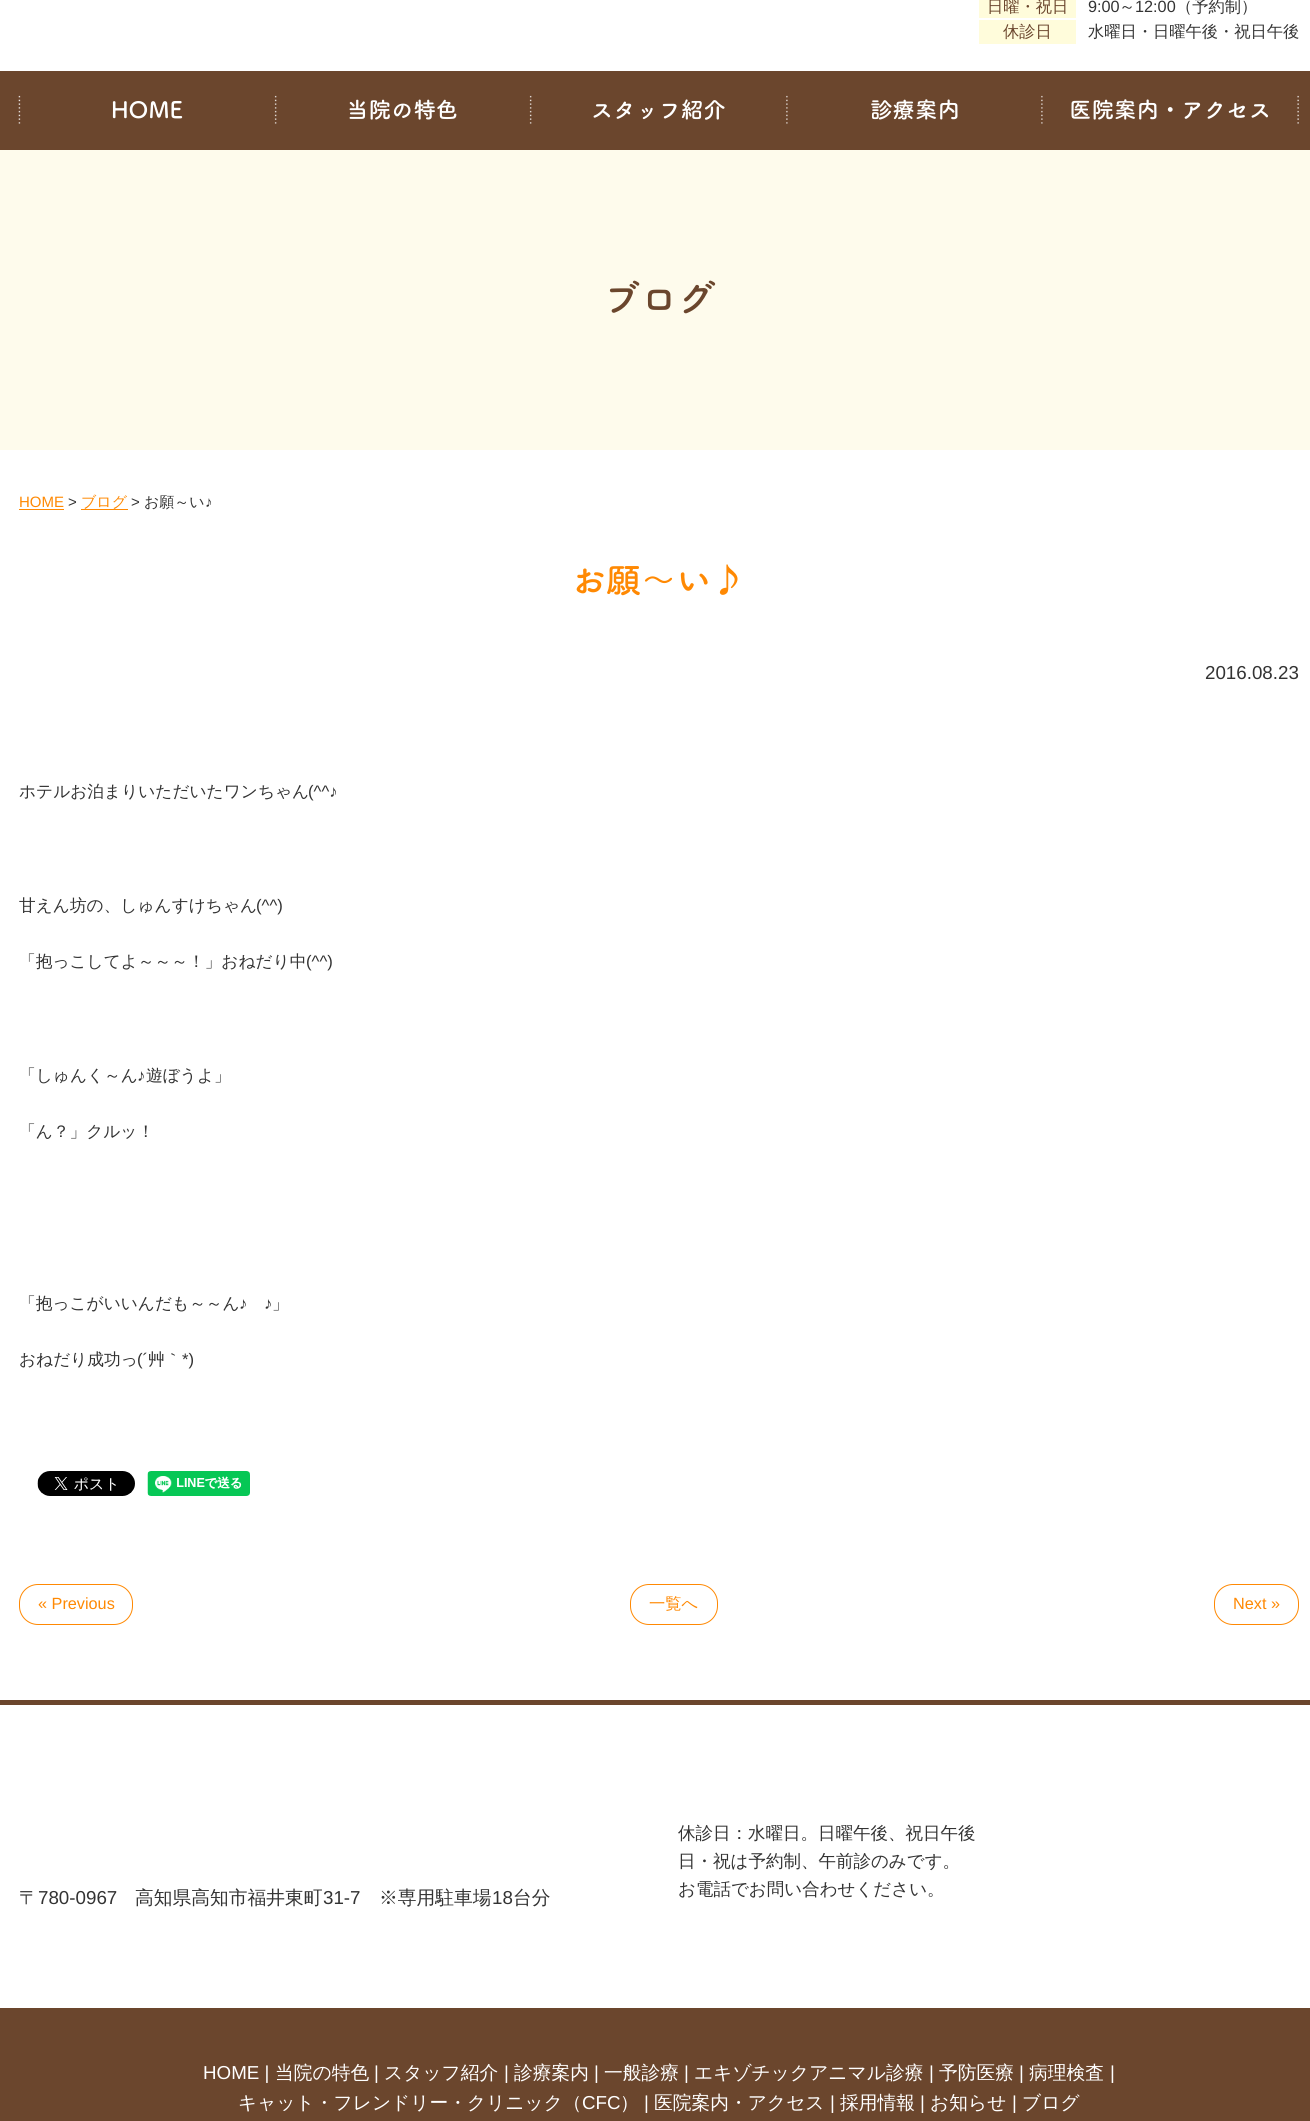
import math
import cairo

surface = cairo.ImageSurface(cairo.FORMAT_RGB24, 1310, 2121)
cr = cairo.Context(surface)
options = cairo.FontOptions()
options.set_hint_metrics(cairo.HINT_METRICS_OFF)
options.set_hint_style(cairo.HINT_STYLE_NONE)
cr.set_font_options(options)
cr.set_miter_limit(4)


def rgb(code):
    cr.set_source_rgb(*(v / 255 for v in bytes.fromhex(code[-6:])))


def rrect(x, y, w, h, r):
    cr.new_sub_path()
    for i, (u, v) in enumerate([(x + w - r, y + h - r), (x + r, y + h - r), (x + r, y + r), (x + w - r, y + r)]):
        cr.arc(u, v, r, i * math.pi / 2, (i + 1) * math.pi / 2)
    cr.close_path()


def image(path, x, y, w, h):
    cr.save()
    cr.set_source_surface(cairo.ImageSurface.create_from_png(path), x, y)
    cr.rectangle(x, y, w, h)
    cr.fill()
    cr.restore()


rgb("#ffffff")
cr.paint()
for x, y, w, h, color in [
    (979, 0, 97, 18, "#fffcdb"),
    (979, 20, 97, 24, "#fffcdb"),
    (0, 71, 1310, 79, "#6b462d"),
]:
    rgb(color)
    cr.rectangle(x, y, w, h)
    cr.fill()
image("img/1.png", 18, 95, 1281, 29)
for x, y, w, h, color in [
    (0, 150, 1310, 300, "#fefbec"),
    (19, 509, 45, 1, "#ff8903"),
    (81, 509, 47, 1, "#ff8903"),
]:
    rgb(color)
    cr.rectangle(x, y, w, h)
    cr.fill()
image("img/2.png", 37, 1471, 98, 25)
image("img/3.png", 147, 1471, 103, 25)
rrect(19.5, 1584.5, 113, 40, 18.5)
cr.set_line_width(1)
cr.stroke()
rrect(630.5, 1584.5, 87, 40, 18.5)
cr.stroke()
rrect(1214.5, 1584.5, 84, 40, 18.5)
cr.stroke()
rgb("#6b462d")
cr.rectangle(0, 1700, 1310, 5)
cr.fill()
cr.rectangle(0, 2008, 1310, 113)
cr.fill()
cr.select_font_face("WenQuanYi Zen Hei Medium")
cr.set_font_size(16.25)
cr.move_to(987, 12)
cr.show_text("日曜・祝日")
cr.select_font_face("Liberation Sans")
rgb("#333333")
cr.move_to(1088, 12)
cr.show_text("9:00")
cr.select_font_face("WenQuanYi Zen Hei Medium")
cr.move_to(1119, 12)
cr.show_text("～")
cr.select_font_face("Liberation Sans")
cr.move_to(1135, 12)
cr.show_text("12:00")
cr.select_font_face("WenQuanYi Zen Hei Medium")
cr.move_to(1176, 12)
cr.show_text("（予約制）")
rgb("#6b462d")
cr.move_to(1003, 37)
cr.show_text("休診日")
rgb("#333333")
cr.move_to(1088, 37)
cr.show_text("水曜日・日曜午後・祝日午後")
cr.select_font_face("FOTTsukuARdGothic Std", cairo.FONT_SLANT_NORMAL, cairo.FONT_WEIGHT_BOLD)
cr.set_font_size(22.5)
rgb("#ffffff")
for x, y, s in [
    (111, 118, "HOME"),
    (346, 118, "当院の特色"),
    (591, 118, "スタッフ紹介"),
    (870, 118, "診療案内"),
    (1069, 118, "医院案内・アクセス"),
]:
    cr.move_to(x, y)
    cr.show_text(s)
cr.set_font_size(37.5)
rgb("#6b462d")
cr.move_to(603, 312)
cr.show_text("ブログ")
cr.select_font_face("Liberation Sans")
cr.set_font_size(15)
rgb("#ff8903")
cr.move_to(19, 507)
cr.show_text("HOME")
rgb("#333333")
cr.move_to(68, 507)
cr.show_text(">")
cr.select_font_face("WenQuanYi Zen Hei Medium")
rgb("#ff8903")
cr.move_to(81, 507)
cr.show_text("ブログ")
cr.select_font_face("Liberation Sans")
rgb("#333333")
cr.move_to(131, 507)
cr.show_text(">")
cr.select_font_face("WenQuanYi Zen Hei Medium")
cr.move_to(144, 507)
cr.show_text("お願～い")
cr.select_font_face("Liberation Sans")
cr.move_to(205, 507)
cr.show_text("♪")
cr.select_font_face("FOTTsukuARdGothic Std", cairo.FONT_SLANT_NORMAL, cairo.FONT_WEIGHT_BOLD)
cr.set_font_size(35)
rgb("#ff8903")
cr.move_to(571, 593)
cr.show_text("お願～い♪")
cr.select_font_face("Liberation Sans")
cr.set_font_size(18.75)
rgb("#333333")
cr.move_to(1205, 679)
cr.show_text("2016.08.23")
cr.select_font_face("WenQuanYi Zen Hei Medium")
cr.set_font_size(16.7)
cr.move_to(19, 797)
cr.show_text("ホテルお泊まりいただいたワンちゃん")
cr.select_font_face("Liberation Sans")
cr.move_to(308, 797)
cr.show_text("(^^♪")
cr.select_font_face("WenQuanYi Zen Hei Medium")
cr.move_to(19, 911)
cr.show_text("甘えん坊の、しゅんすけちゃん")
cr.select_font_face("Liberation Sans")
cr.move_to(256, 911)
cr.show_text("(^^)")
cr.select_font_face("WenQuanYi Zen Hei Medium")
cr.move_to(19, 967)
cr.show_text("「抱っこしてよ～～～！」おねだり中")
cr.select_font_face("Liberation Sans")
cr.move_to(306, 967)
cr.show_text("(^^)")
cr.select_font_face("WenQuanYi Zen Hei Medium")
cr.move_to(19, 1081)
cr.show_text("「しゅんく～ん")
cr.select_font_face("Liberation Sans")
cr.move_to(137, 1081)
cr.show_text("♪")
cr.select_font_face("WenQuanYi Zen Hei Medium")
for x, y, s in [
    (146, 1081, "遊ぼうよ」"),
    (19, 1137, "「ん？」クルッ！"),
    (19, 1309, "「抱っこがいいんだも～～ん"),
]:
    cr.move_to(x, y)
    cr.show_text(s)
cr.select_font_face("Liberation Sans")
cr.move_to(239, 1309)
cr.show_text("♪")
cr.move_to(264, 1309)
cr.show_text("♪")
cr.select_font_face("WenQuanYi Zen Hei Medium")
cr.move_to(272, 1309)
cr.show_text("」")
cr.move_to(19, 1365)
cr.show_text("おねだり成功っ")
cr.select_font_face("Liberation Sans")
cr.move_to(137, 1365)
cr.show_text("(´")
cr.select_font_face("WenQuanYi Zen Hei Medium")
cr.move_to(148, 1365)
cr.show_text("艸｀")
cr.select_font_face("Liberation Sans")
cr.move_to(182, 1365)
cr.show_text("*)")
cr.set_font_size(16.25)
rgb("#ff8903")
cr.move_to(38, 1609)
cr.show_text("« Previous")
cr.select_font_face("WenQuanYi Zen Hei Medium")
cr.move_to(649, 1609)
cr.show_text("一覧へ")
cr.select_font_face("Liberation Sans")
cr.move_to(1233, 1609)
cr.show_text("Next »")
cr.select_font_face("WenQuanYi Zen Hei Medium")
cr.set_font_size(18.75)
rgb("#333333")
cr.move_to(19, 1904)
cr.show_text("〒")
cr.select_font_face("Liberation Sans")
cr.move_to(38, 1904)
cr.show_text("780-0967")
cr.select_font_face("WenQuanYi Zen Hei Medium")
cr.move_to(135, 1904)
cr.show_text("高知県高知市福井東町")
cr.select_font_face("Liberation Sans")
cr.move_to(323, 1904)
cr.show_text("31-7")
cr.select_font_face("WenQuanYi Zen Hei Medium")
cr.move_to(379, 1904)
cr.show_text("※専用駐車場")
cr.select_font_face("Liberation Sans")
cr.move_to(492, 1904)
cr.show_text("18")
cr.select_font_face("WenQuanYi Zen Hei Medium")
cr.move_to(513, 1904)
cr.show_text("台分")
cr.set_font_size(17.5)
for x, y, s in [
    (678, 1839, "休診日：水曜日。日曜午後、祝日午後"),
    (678, 1867, "日・祝は予約制、午前診のみです。"),
    (678, 1895, "お電話でお問い合わせください。"),
]:
    cr.move_to(x, y)
    cr.show_text(s)
cr.select_font_face("Liberation Sans")
cr.set_font_size(18.75)
rgb("#ffffff")
cr.move_to(203, 2079)
cr.show_text("HOME |")
cr.select_font_face("WenQuanYi Zen Hei Medium")
cr.move_to(275, 2079)
cr.show_text("当院の特色")
cr.select_font_face("Liberation Sans")
cr.move_to(374, 2079)
cr.show_text("|")
cr.select_font_face("WenQuanYi Zen Hei Medium")
cr.move_to(384, 2079)
cr.show_text("スタッフ紹介")
cr.select_font_face("Liberation Sans")
cr.move_to(504, 2079)
cr.show_text("|")
cr.select_font_face("WenQuanYi Zen Hei Medium")
cr.move_to(514, 2079)
cr.show_text("診療案内")
cr.select_font_face("Liberation Sans")
cr.move_to(594, 2079)
cr.show_text("|")
cr.select_font_face("WenQuanYi Zen Hei Medium")
cr.move_to(604, 2079)
cr.show_text("一般診療")
cr.select_font_face("Liberation Sans")
cr.move_to(684, 2079)
cr.show_text("|")
cr.select_font_face("WenQuanYi Zen Hei Medium")
cr.move_to(694, 2079)
cr.show_text("エキゾチックアニマル診療")
cr.select_font_face("Liberation Sans")
cr.move_to(929, 2079)
cr.show_text("|")
cr.select_font_face("WenQuanYi Zen Hei Medium")
cr.move_to(939, 2079)
cr.show_text("予防医療")
cr.select_font_face("Liberation Sans")
cr.move_to(1019, 2079)
cr.show_text("|")
cr.select_font_face("WenQuanYi Zen Hei Medium")
cr.move_to(1029, 2079)
cr.show_text("病理検査")
cr.select_font_face("Liberation Sans")
cr.move_to(1110, 2079)
cr.show_text("|")
cr.select_font_face("WenQuanYi Zen Hei Medium")
cr.move_to(238, 2109)
cr.show_text("キャット・フレンドリー・クリニック（")
cr.select_font_face("Liberation Sans")
cr.move_to(582, 2109)
cr.show_text("CFC")
cr.select_font_face("WenQuanYi Zen Hei Medium")
cr.move_to(620, 2109)
cr.show_text("）")
cr.select_font_face("Liberation Sans")
cr.move_to(644, 2109)
cr.show_text("|")
cr.select_font_face("WenQuanYi Zen Hei Medium")
cr.move_to(654, 2109)
cr.show_text("医院案内・アクセス")
cr.select_font_face("Liberation Sans")
cr.move_to(830, 2109)
cr.show_text("|")
cr.select_font_face("WenQuanYi Zen Hei Medium")
cr.move_to(840, 2109)
cr.show_text("採用情報")
cr.select_font_face("Liberation Sans")
cr.move_to(920, 2109)
cr.show_text("|")
cr.select_font_face("WenQuanYi Zen Hei Medium")
cr.move_to(930, 2109)
cr.show_text("お知らせ")
cr.select_font_face("Liberation Sans")
cr.move_to(1012, 2109)
cr.show_text("|")
cr.select_font_face("WenQuanYi Zen Hei Medium")
cr.move_to(1022, 2109)
cr.show_text("ブログ")
surface.write_to_png("page.png")
